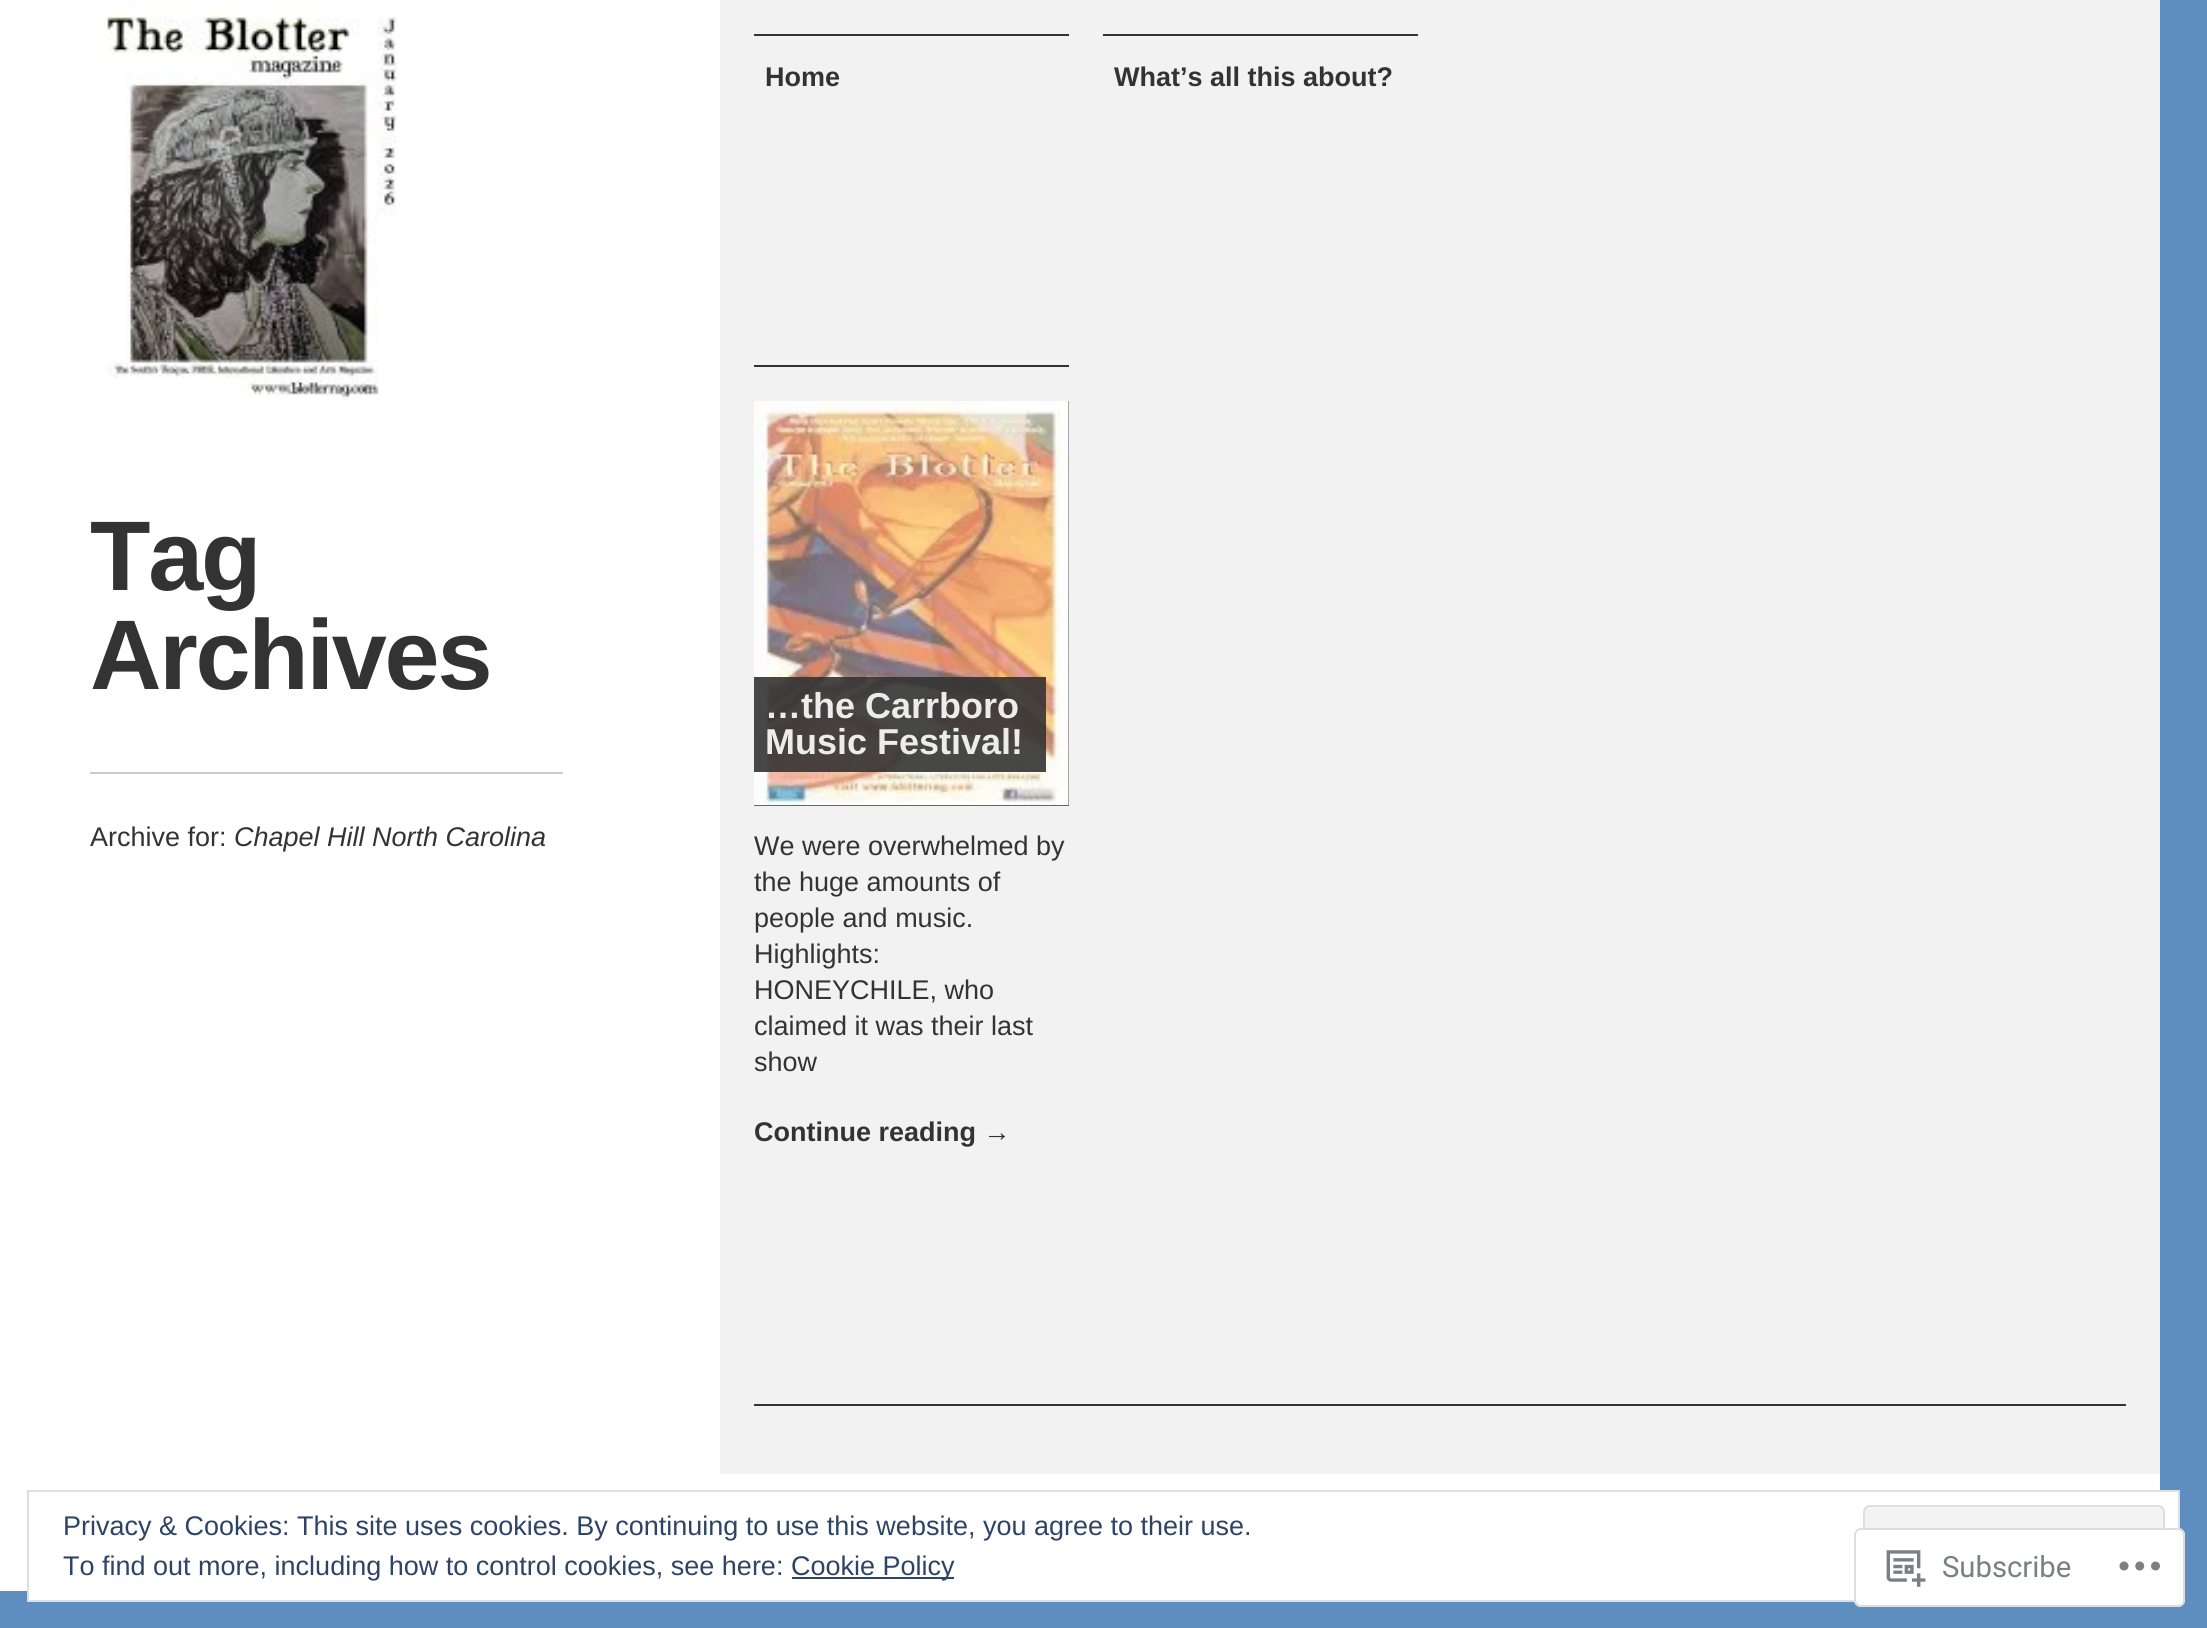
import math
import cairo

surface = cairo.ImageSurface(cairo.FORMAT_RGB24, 2207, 1628)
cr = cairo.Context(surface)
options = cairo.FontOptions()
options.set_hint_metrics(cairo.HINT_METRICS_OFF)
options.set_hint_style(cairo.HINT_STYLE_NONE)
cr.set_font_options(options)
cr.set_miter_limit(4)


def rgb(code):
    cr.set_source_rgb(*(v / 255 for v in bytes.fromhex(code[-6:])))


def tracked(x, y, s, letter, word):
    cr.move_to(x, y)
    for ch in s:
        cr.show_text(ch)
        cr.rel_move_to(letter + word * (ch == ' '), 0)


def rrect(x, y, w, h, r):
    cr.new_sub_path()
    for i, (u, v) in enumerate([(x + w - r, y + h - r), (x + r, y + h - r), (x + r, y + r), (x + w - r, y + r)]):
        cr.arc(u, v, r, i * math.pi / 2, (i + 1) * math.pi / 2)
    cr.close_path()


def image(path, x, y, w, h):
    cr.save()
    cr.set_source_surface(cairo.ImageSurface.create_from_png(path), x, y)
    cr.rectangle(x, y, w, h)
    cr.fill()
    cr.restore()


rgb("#5d8ebf")
cr.paint()
rgb("#ffffff")
cr.rectangle(0, 0, 720, 1474)
cr.fill()
rgb("#f2f2f2")
cr.rectangle(720, 0, 1440, 1474)
cr.fill()
image("img/1.png", 90, 0, 315, 405)
for x, y, w, h, color in [
    (90, 772, 473, 2, "#cccccc"),
    (754, 34, 315, 2, "#333333"),
    (1103, 34, 315, 2, "#333333"),
    (754, 365, 315, 2, "#333333"),
    (754, 401, 315, 405, "#333333"),
]:
    rgb(color)
    cr.rectangle(x, y, w, h)
    cr.fill()
image("img/2.png", 754, 401, 315, 405)
cr.set_source_rgba(0.2, 0.2, 0.2, 0.9)
cr.rectangle(754, 677, 292, 95)
cr.fill()
rgb("#333333")
cr.rectangle(754, 1404, 1372, 2)
cr.fill()
rgb("#ffffff")
cr.rectangle(0, 1474, 2160, 117)
cr.fill()
cr.rectangle(28, 1491, 2151, 110)
cr.fill_preserve()
rgb("#dedede")
cr.stroke()
rgb("#f3f3f3")
rrect(1864, 1506, 300, 55, 6)
cr.fill_preserve()
rgb("#dedede")
cr.stroke()
rgb("#2e4467")
cr.rectangle(792, 1577, 162, 2)
cr.fill()
cr.set_source_rgba(1, 1, 1, 0.98)
rrect(1854, 1528, 331, 79, 7)
cr.fill()
rrect(1855, 1529, 329, 77, 6)
cr.set_source_rgba(0.863, 0.863, 0.871, 0.98)
cr.stroke()
image("img/3.png", 1886, 1550, 40, 37)
image("img/4.png", 2119, 1561, 41, 10)
cr.select_font_face("Liberation Sans", cairo.FONT_SLANT_NORMAL, cairo.FONT_WEIGHT_BOLD)
cr.set_font_size(99)
rgb("#333333")
tracked(90, 590, "Tag", -2.25, 0)
tracked(90, 689, "Archives", -2.25, 0)
cr.select_font_face("Liberation Sans")
cr.set_font_size(27)
cr.move_to(90, 846)
cr.show_text("Archive for:")
cr.select_font_face("Liberation Sans", cairo.FONT_SLANT_ITALIC)
cr.move_to(234, 846)
cr.show_text("Chapel Hill North Carolina")
cr.select_font_face("Liberation Sans", cairo.FONT_SLANT_NORMAL, cairo.FONT_WEIGHT_BOLD)
cr.move_to(765, 86)
cr.show_text("Home")
cr.move_to(1114, 86)
cr.show_text("What’s all this about?")
cr.set_font_size(36)
rgb("#ececec")
cr.move_to(765, 718)
cr.show_text("…the Carrboro")
cr.move_to(765, 754)
cr.show_text("Music Festival!")
cr.select_font_face("Liberation Sans")
cr.set_font_size(27)
rgb("#333333")
for x, y, s in [
    (754, 855, "We were overwhelmed by"),
    (754, 891, "the huge amounts of"),
    (754, 927, "people and music."),
    (754, 963, "Highlights:"),
    (754, 999, "HONEYCHILE, who"),
    (754, 1035, "claimed it was their last"),
    (754, 1071, "show"),
]:
    cr.move_to(x, y)
    cr.show_text(s)
cr.select_font_face("Liberation Sans", cairo.FONT_SLANT_NORMAL, cairo.FONT_WEIGHT_BOLD)
cr.move_to(754, 1141)
cr.show_text("Continue reading →")
cr.select_font_face("Liberation Sans")
rgb("#2e4467")
for x, y, s in [
    (63, 1535, "Privacy & Cookies: This site uses cookies. By continuing to use this website, you agree to their use."),
    (63, 1575, "To find out more, including how to control cookies, see here:"),
    (791, 1575, "Cookie Policy"),
]:
    cr.move_to(x, y)
    cr.show_text(s)
cr.select_font_face("Roboto")
cr.set_font_size(29.25)
rgb("#7b7f84")
cr.move_to(1942, 1577)
cr.show_text("Subscribe")
surface.write_to_png("page.png")
